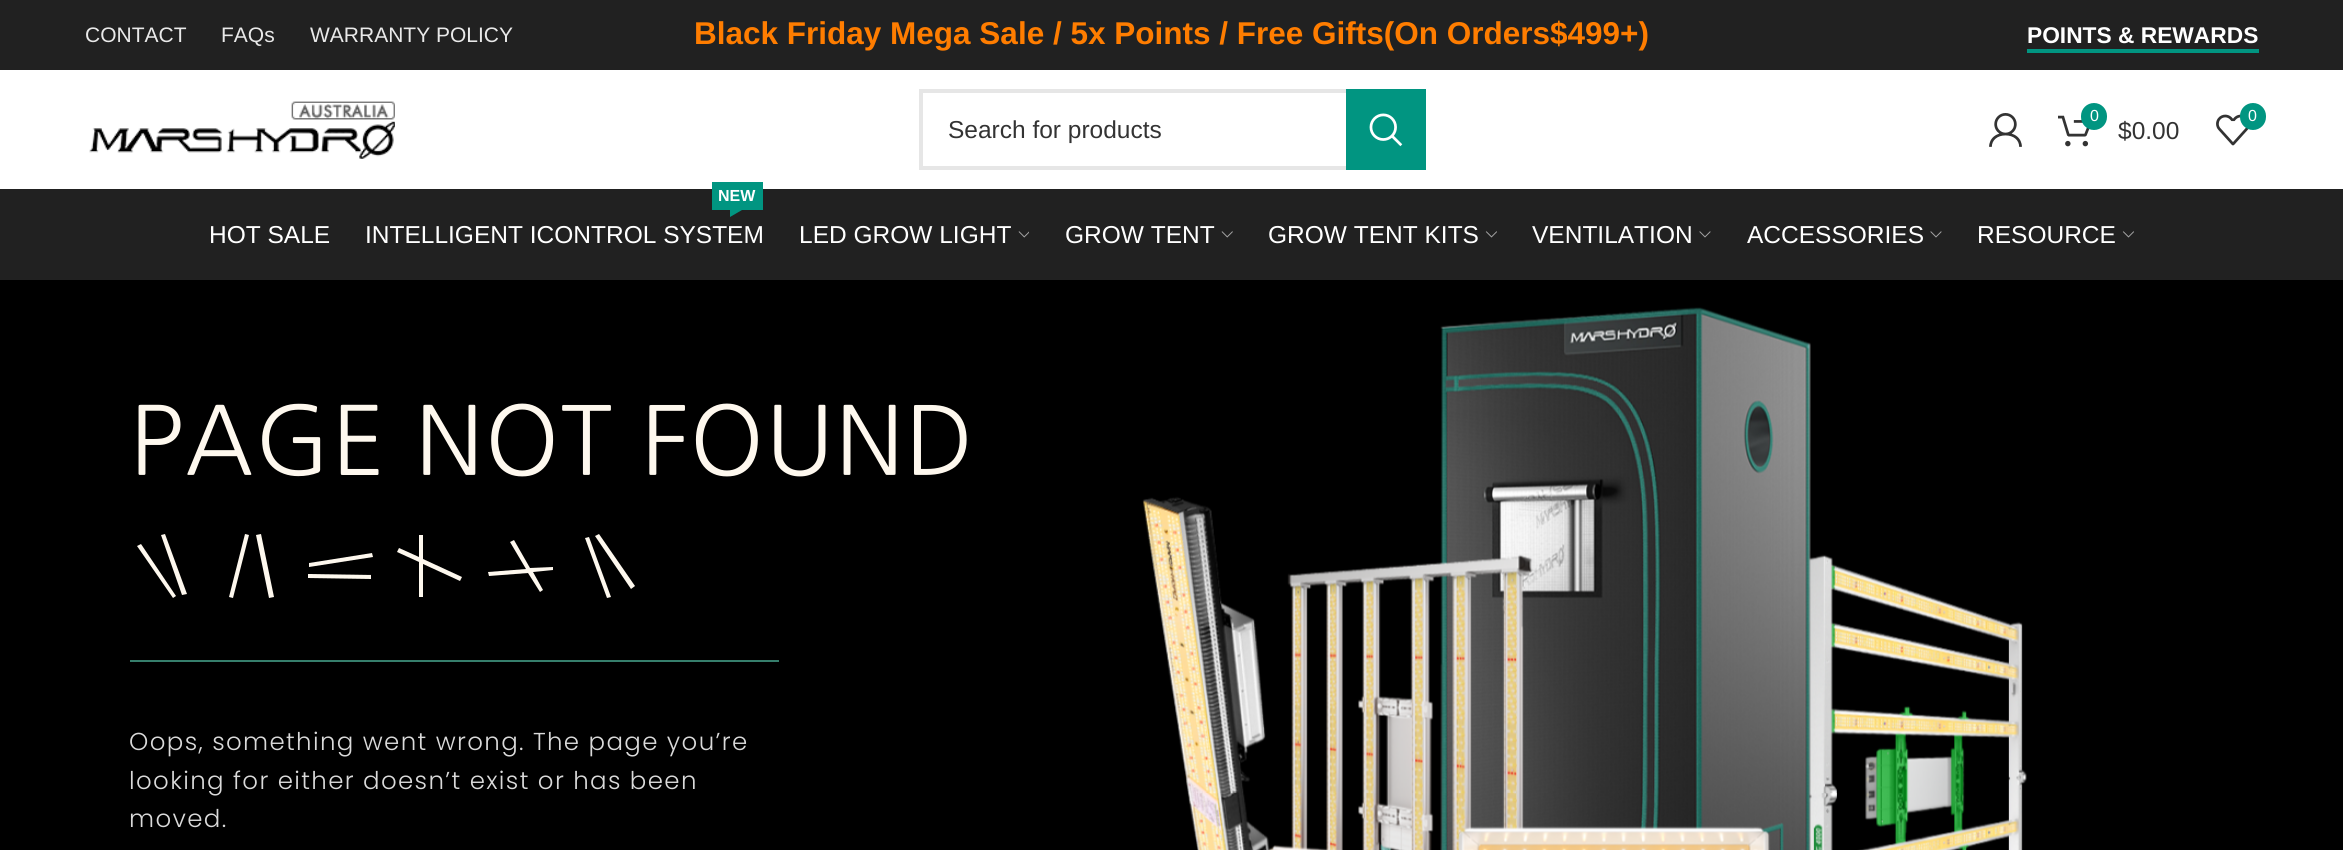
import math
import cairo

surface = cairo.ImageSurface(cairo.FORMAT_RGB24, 2343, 850)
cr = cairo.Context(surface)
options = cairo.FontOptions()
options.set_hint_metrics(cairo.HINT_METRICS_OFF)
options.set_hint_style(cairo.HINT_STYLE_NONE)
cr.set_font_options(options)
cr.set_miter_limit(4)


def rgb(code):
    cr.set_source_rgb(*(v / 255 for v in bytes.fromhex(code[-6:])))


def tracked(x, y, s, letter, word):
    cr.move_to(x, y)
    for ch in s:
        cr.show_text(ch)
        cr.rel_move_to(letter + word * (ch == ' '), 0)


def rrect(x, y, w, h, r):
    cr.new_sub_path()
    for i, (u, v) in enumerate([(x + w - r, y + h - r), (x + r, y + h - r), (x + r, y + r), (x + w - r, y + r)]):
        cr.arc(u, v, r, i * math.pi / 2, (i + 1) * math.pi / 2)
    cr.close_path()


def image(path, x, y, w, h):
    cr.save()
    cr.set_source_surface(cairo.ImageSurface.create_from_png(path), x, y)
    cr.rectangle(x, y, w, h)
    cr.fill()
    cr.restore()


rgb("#ffffff")
cr.paint()
rgb("#212121")
cr.rectangle(0, 0, 2343, 70)
cr.fill()
rgb("#019581")
cr.rectangle(2027, 49, 232, 4)
cr.fill()
image("img/1.png", 89, 101, 306, 58)
cr.rectangle(921, 91, 503, 77)
rgb("#e6e6e6")
cr.set_line_width(4)
cr.stroke()
rgb("#019581")
cr.rectangle(1346, 89, 80, 81)
cr.fill()
image("img/2.png", 1369, 113, 34, 34)
image("img/3.png", 1989, 113, 33, 34)
image("img/4.png", 2058, 115, 32, 32)
rrect(2081, 103, 26, 27, 13)
cr.fill()
image("img/5.png", 2216, 114, 33, 32)
rrect(2240, 103, 26, 27, 13)
cr.fill()
rgb("#212121")
cr.rectangle(0, 189, 2343, 91)
cr.fill()
rgb("#019581")
cr.rectangle(712, 182, 51, 28)
cr.fill()
cr.new_path()
cr.move_to(730, 210)
cr.line_to(742, 210)
cr.line_to(730, 217)
cr.close_path()
cr.fill()
image("img/6.png", 1018, 231, 11, 7)
image("img/7.png", 1221, 231, 12, 7)
image("img/8.png", 1485, 231, 12, 7)
image("img/9.png", 1699, 231, 12, 7)
image("img/9.png", 1930, 231, 12, 7)
image("img/8.png", 2122, 231, 12, 7)
rgb("#000000")
cr.rectangle(0, 280, 2343, 570)
cr.fill()
rgb("#fef8ee")
cr.new_path()
cr.move_to(161, 535)
cr.line_to(165, 534)
cr.line_to(187, 594)
cr.line_to(182, 595)
cr.close_path()
cr.fill()
cr.new_path()
cr.move_to(137, 546)
cr.line_to(141, 544)
cr.line_to(176, 596)
cr.line_to(173, 598)
cr.close_path()
cr.fill()
cr.new_path()
cr.move_to(229, 597)
cr.line_to(245, 534)
cr.line_to(249, 535)
cr.line_to(233, 598)
cr.close_path()
cr.fill()
cr.new_path()
cr.move_to(256, 535)
cr.line_to(261, 534)
cr.line_to(274, 597)
cr.line_to(269, 598)
cr.close_path()
cr.fill()
cr.new_path()
cr.move_to(309, 563)
cr.line_to(372, 553)
cr.line_to(373, 557)
cr.line_to(309, 567)
cr.close_path()
cr.fill()
cr.new_path()
cr.move_to(308, 578)
cr.line_to(308, 574)
cr.line_to(371, 575)
cr.line_to(371, 579)
cr.close_path()
cr.fill()
cr.new_path()
cr.move_to(462, 577)
cr.line_to(423, 559)
cr.line_to(423, 535)
cr.line_to(419, 535)
cr.line_to(419, 557)
cr.line_to(399, 548)
cr.line_to(397, 552)
cr.line_to(419, 562)
cr.line_to(419, 597)
cr.line_to(423, 597)
cr.line_to(423, 564)
cr.line_to(460, 581)
cr.close_path()
cr.fill()
cr.new_path()
cr.move_to(553, 570)
cr.line_to(553, 567)
cr.line_to(530, 568)
cr.line_to(514, 540)
cr.line_to(510, 542)
cr.line_to(526, 569)
cr.line_to(488, 572)
cr.line_to(489, 576)
cr.line_to(528, 573)
cr.line_to(540, 592)
cr.line_to(543, 590)
cr.line_to(533, 572)
cr.close_path()
cr.fill()
cr.new_path()
cr.move_to(585, 538)
cr.line_to(589, 537)
cr.line_to(611, 597)
cr.line_to(607, 598)
cr.close_path()
cr.fill()
cr.new_path()
cr.move_to(595, 536)
cr.line_to(599, 534)
cr.line_to(635, 586)
cr.line_to(631, 589)
cr.close_path()
cr.fill()
rgb("#367e6c")
cr.rectangle(130, 660, 649, 2)
cr.fill()
image("img/10.png", 1142, 307, 885, 543)
cr.select_font_face("Liberation Sans")
cr.set_font_size(21)
rgb("#e9e9e9")
for x, y, s in [
    (85, 42, "CONTACT"),
    (221, 42, "FAQs"),
    (310, 42, "WARRANTY POLICY"),
]:
    cr.move_to(x, y)
    cr.show_text(s)
cr.select_font_face("Liberation Sans", cairo.FONT_SLANT_NORMAL, cairo.FONT_WEIGHT_BOLD)
cr.set_font_size(31.5)
rgb("#ff7d00")
cr.move_to(694, 44)
cr.show_text("Black Friday Mega Sale / 5x Points / Free Gifts(On Orders$499+)")
cr.set_font_size(22.75)
rgb("#ffffff")
cr.move_to(2027, 43)
cr.show_text("POINTS & REWARDS")
cr.select_font_face("Liberation Sans")
cr.set_font_size(24.5)
rgb("#333333")
cr.move_to(948, 138)
cr.show_text("Search for products")
cr.set_font_size(16)
rgb("#ffffff")
cr.move_to(2090, 121)
cr.show_text("0")
cr.set_font_size(24.5)
rgb("#333333")
cr.move_to(2118, 139)
cr.show_text("$0.00")
cr.set_font_size(16)
rgb("#ffffff")
cr.move_to(2248, 121)
cr.show_text("0")
cr.set_font_size(24.5)
cr.move_to(209, 243)
cr.show_text("HOT SALE")
cr.select_font_face("Liberation Sans", cairo.FONT_SLANT_NORMAL, cairo.FONT_WEIGHT_BOLD)
cr.set_font_size(16)
cr.move_to(718, 201)
cr.show_text("NEW")
cr.select_font_face("Liberation Sans")
cr.set_font_size(24.5)
for x, y, s in [
    (365, 243, "INTELLIGENT ICONTROL SYSTEM"),
    (799, 243, "LED GROW LIGHT"),
    (1065, 243, "GROW TENT"),
    (1268, 243, "GROW TENT KITS"),
    (1532, 243, "VENTILATION"),
    (1747, 243, "ACCESSORIES"),
    (1977, 243, "RESOURCE"),
]:
    cr.move_to(x, y)
    cr.show_text(s)
cr.select_font_face("NanumGothic")
cr.set_font_size(94.5)
rgb("#fef8ee")
tracked(129, 475, "PAGE NOT FOUND", 1.25, 0)
cr.select_font_face("Poppins Light")
cr.set_font_size(24.5)
rgb("#dadada")
for x, y, s in [
    (129, 750, "Oops, something went wrong. The page you’re"),
    (129, 789, "looking for either doesn’t exist or has been"),
    (129, 827, "moved."),
]:
    tracked(x, y, s, 1.35, 0)
surface.write_to_png("page.png")
